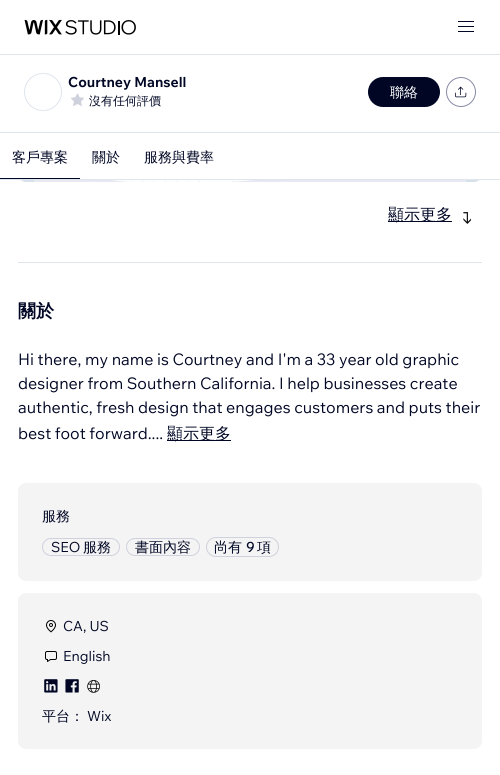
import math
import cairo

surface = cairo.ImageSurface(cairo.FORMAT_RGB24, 500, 775)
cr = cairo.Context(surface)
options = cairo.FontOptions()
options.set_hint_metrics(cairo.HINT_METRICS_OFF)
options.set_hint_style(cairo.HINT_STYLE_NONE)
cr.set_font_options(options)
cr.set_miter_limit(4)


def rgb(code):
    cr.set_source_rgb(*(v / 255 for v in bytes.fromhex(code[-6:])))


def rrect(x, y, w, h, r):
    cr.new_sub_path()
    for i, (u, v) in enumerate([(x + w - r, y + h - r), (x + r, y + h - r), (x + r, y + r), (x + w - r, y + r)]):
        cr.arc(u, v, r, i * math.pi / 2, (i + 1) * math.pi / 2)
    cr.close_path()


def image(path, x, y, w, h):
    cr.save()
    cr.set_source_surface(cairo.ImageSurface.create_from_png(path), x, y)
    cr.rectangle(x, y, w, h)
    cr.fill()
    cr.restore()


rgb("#ffffff")
cr.paint()
gradient = cairo.LinearGradient(250, -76, 250, 182)
gradient.add_color_stop_rgba(0, 0.918, 0.937, 0.957, 1)
gradient.add_color_stop_rgba(0.5, 0.886, 0.918, 0.941, 1)
gradient.add_color_stop_rgba(1, 0.843, 0.882, 0.922, 1)
cr.set_source(gradient)
rrect(18, -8, 464, 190, 8)
cr.fill()
rgb("#ffffff")
cr.rectangle(18, 0, 464, 54)
cr.fill()
image("img/1.png", 24, 19, 38, 16)
image("img/2.png", 65, 20, 71, 15)
image("img/3.png", 458, 21, 16, 11)
rgb("#dfe5eb")
cr.rectangle(0, 54, 500, 1)
cr.fill()
rgb("#ffffff")
cr.rectangle(18, 55, 464, 77)
cr.fill()
cr.arc(43, 92, 18.5, 0, 2 * math.pi)
rgb("#dfe5eb")
cr.set_line_width(1)
cr.stroke()
image("img/4.png", 71, 93, 13, 13)
rgb("#000624")
rrect(368, 77, 72, 30, 15)
cr.fill()
cr.arc(461, 92, 14.5, 0, 2 * math.pi)
rgb("#868aa5")
cr.stroke()
image("img/5.png", 455, 86, 12, 12)
for x, y, w, h, color in [
    (0, 132, 500, 1, "#dfe5eb"),
    (18, 133, 464, 46, "#ffffff"),
    (0, 179, 500, 1, "#dfe5eb"),
    (0, 178, 80, 1, "#000624"),
]:
    rgb(color)
    cr.rectangle(x, y, w, h)
    cr.fill()
image("img/6.png", 34, 180, 432, 2)
cr.rectangle(388, 221, 64, 1)
cr.fill()
image("img/7.png", 463, 212, 8, 12)
rgb("#dfe5eb")
cr.rectangle(18, 262, 464, 1)
cr.fill()
rgb("#000624")
cr.rectangle(167, 440, 64, 1)
cr.fill()
rgb("#f4f4f4")
rrect(18, 483, 464, 98, 8)
cr.fill()
rrect(42.5, 538.5, 77, 17, 8.5)
rgb("#cfd1dc")
cr.stroke()
rrect(126.5, 538.5, 73, 17, 8.5)
cr.stroke()
rrect(206.5, 537.5, 72, 19, 9.5)
cr.stroke()
rgb("#f4f4f4")
rrect(18, 593, 464, 156, 8)
cr.fill()
image("img/8.png", 46, 620, 10, 13)
image("img/9.png", 45, 651, 12, 11)
image("img/10.png", 44, 679, 14, 14)
image("img/11.png", 65, 679, 14, 14)
image("img/12.png", 87, 680, 13, 13)
cr.select_font_face("Wix Madefor Text", cairo.FONT_SLANT_NORMAL, cairo.FONT_WEIGHT_BOLD)
cr.set_font_size(14)
rgb("#000624")
cr.move_to(68, 87)
cr.show_text("Courtney Mansell")
cr.select_font_face("WenQuanYi Zen Hei Medium")
cr.set_font_size(12)
cr.move_to(89, 105)
cr.show_text("沒有任何評價")
cr.set_font_size(14)
rgb("#ffffff")
cr.move_to(390, 97)
cr.show_text("聯絡")
rgb("#000624")
for x, y, s in [
    (12, 162, "客戶專案"),
    (92, 162, "關於"),
    (144, 162, "服務與費率"),
]:
    cr.move_to(x, y)
    cr.show_text(s)
cr.set_font_size(16)
cr.move_to(388, 220)
cr.show_text("顯示更多")
cr.select_font_face("WenQuanYi Zen Hei", cairo.FONT_SLANT_NORMAL, cairo.FONT_WEIGHT_BOLD)
cr.set_font_size(18)
cr.move_to(18, 317)
cr.show_text("關於")
cr.select_font_face("Wix Madefor Text")
cr.set_font_size(16)
for x, y, s in [
    (18, 365, "Hi there, my name is Courtney and I'm a 33 year old graphic"),
    (18, 389, "designer from Southern California. I help businesses create"),
    (18, 413, "authentic, fresh design that engages customers and puts their"),
    (18, 439, "best foot forward...."),
]:
    cr.move_to(x, y)
    cr.show_text(s)
cr.select_font_face("WenQuanYi Zen Hei Medium")
cr.move_to(167, 439)
cr.show_text("顯示更多")
cr.set_font_size(14)
cr.move_to(42, 521)
cr.show_text("服務")
cr.select_font_face("Wix Madefor Text")
cr.move_to(51, 552)
cr.show_text("SEO")
cr.select_font_face("WenQuanYi Zen Hei Medium")
for x, y, s in [
    (83, 552, "服務"),
    (135, 552, "書面內容"),
    (214, 552, "尚有"),
]:
    cr.move_to(x, y)
    cr.show_text(s)
cr.select_font_face("Wix Madefor Text Medium")
cr.move_to(246, 552)
cr.show_text("9")
cr.select_font_face("WenQuanYi Zen Hei Medium")
cr.move_to(257, 552)
cr.show_text("項")
cr.select_font_face("Wix Madefor Text")
cr.move_to(63, 631)
cr.show_text("CA, US")
cr.move_to(63, 661)
cr.show_text("English")
cr.select_font_face("WenQuanYi Zen Hei Medium")
cr.move_to(42, 721)
cr.show_text("平台：")
cr.select_font_face("Wix Madefor Text")
cr.move_to(87, 721)
cr.show_text("Wix")
surface.write_to_png("page.png")
